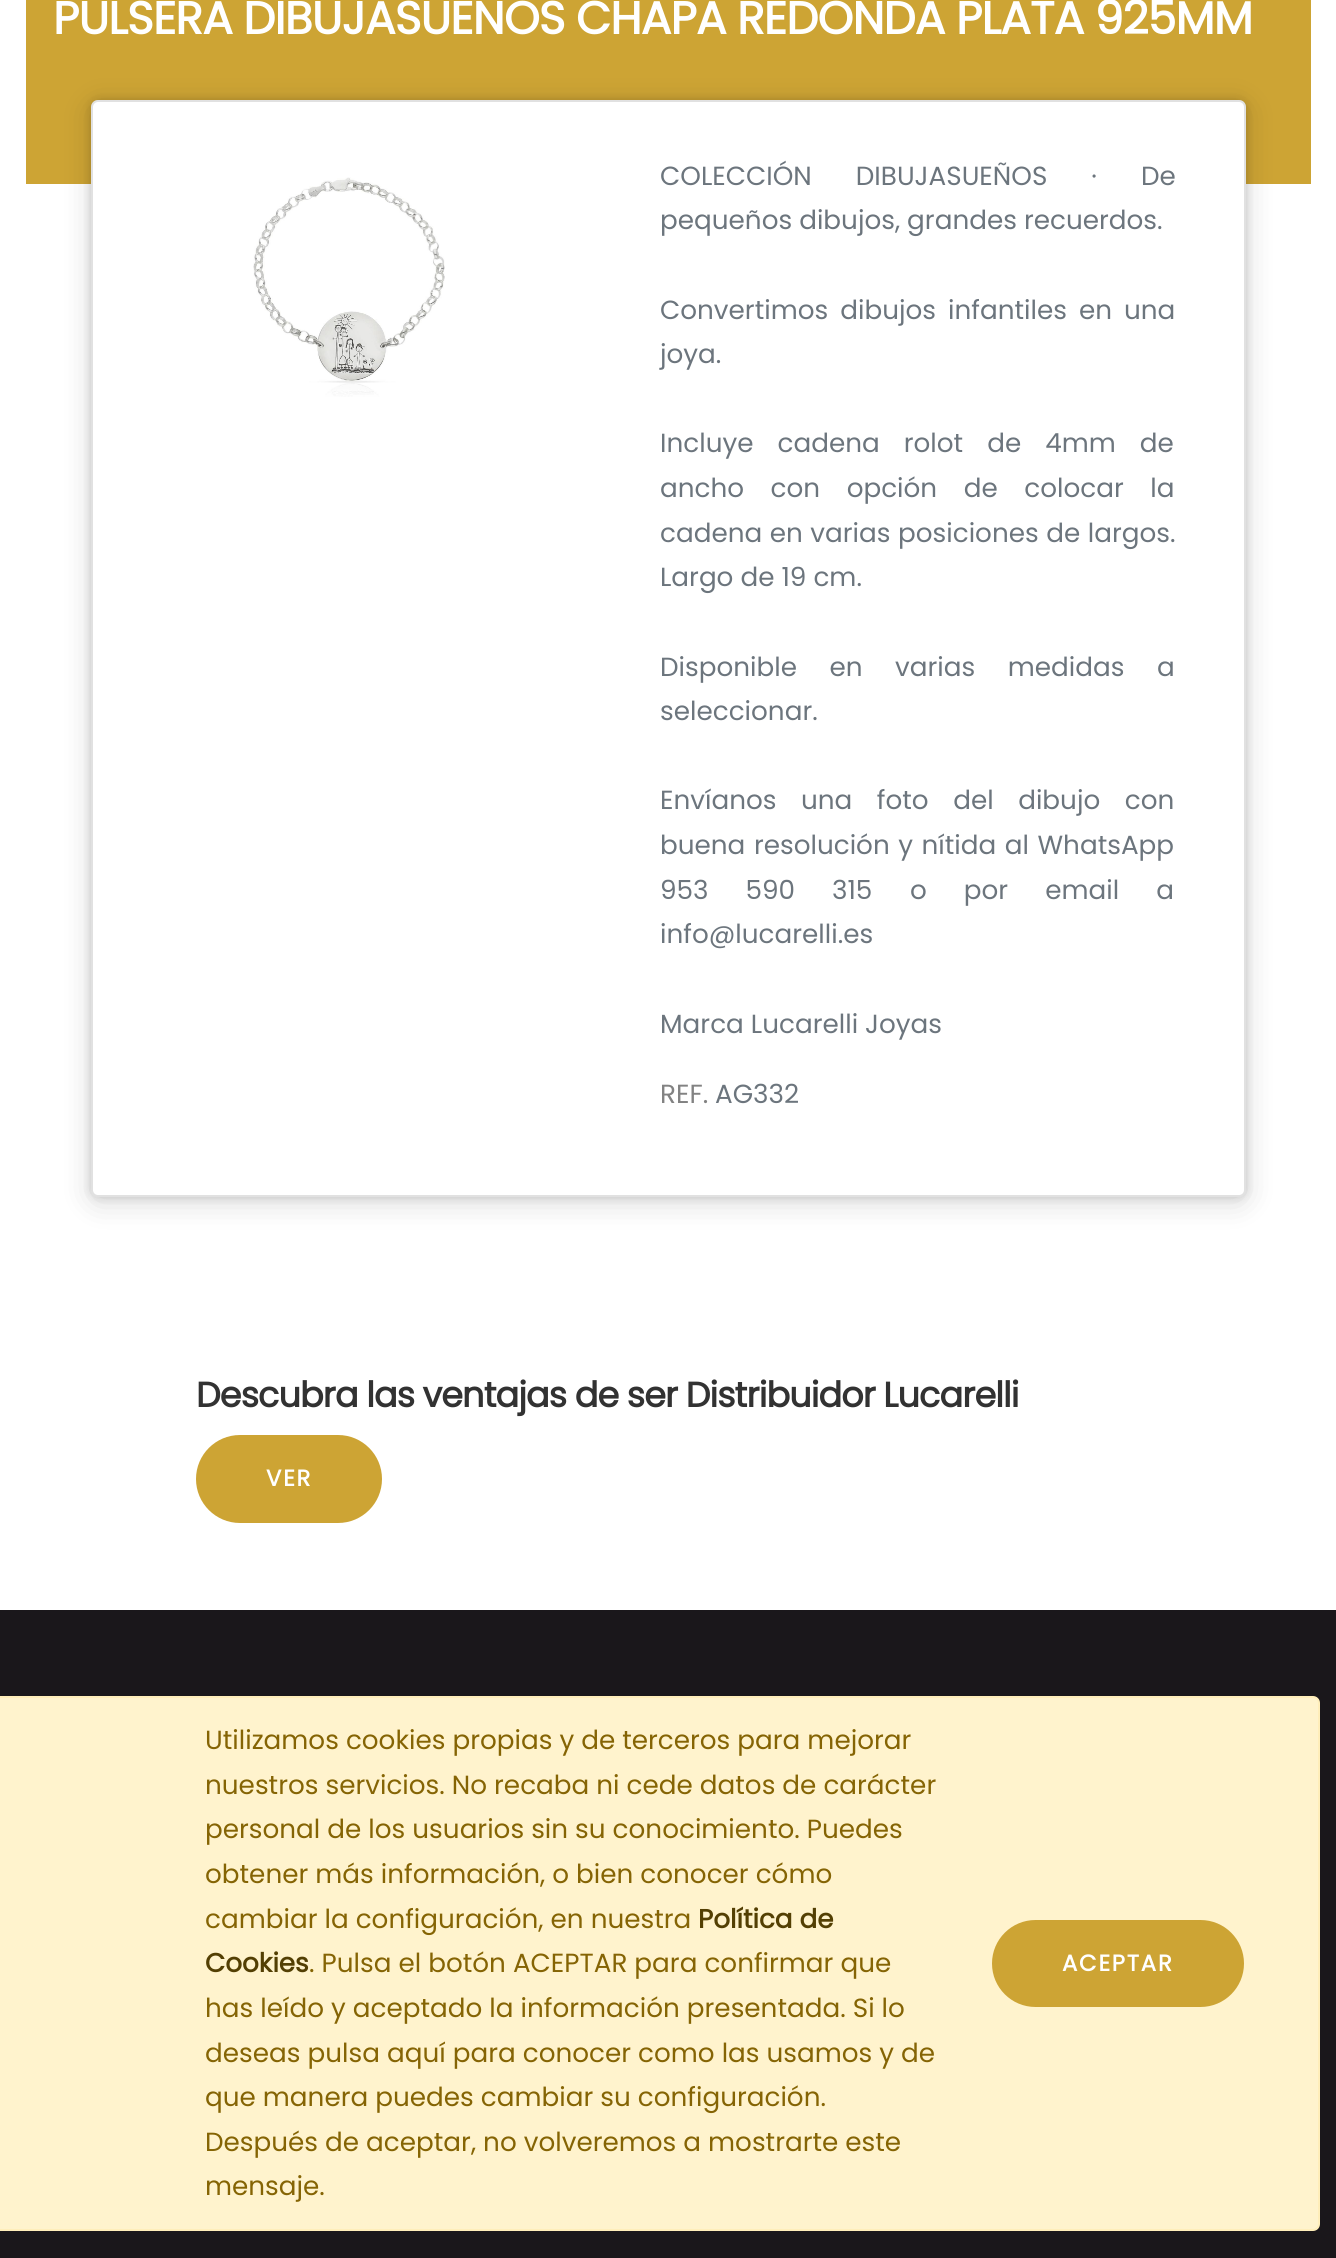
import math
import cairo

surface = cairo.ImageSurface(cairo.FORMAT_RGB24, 1336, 2258)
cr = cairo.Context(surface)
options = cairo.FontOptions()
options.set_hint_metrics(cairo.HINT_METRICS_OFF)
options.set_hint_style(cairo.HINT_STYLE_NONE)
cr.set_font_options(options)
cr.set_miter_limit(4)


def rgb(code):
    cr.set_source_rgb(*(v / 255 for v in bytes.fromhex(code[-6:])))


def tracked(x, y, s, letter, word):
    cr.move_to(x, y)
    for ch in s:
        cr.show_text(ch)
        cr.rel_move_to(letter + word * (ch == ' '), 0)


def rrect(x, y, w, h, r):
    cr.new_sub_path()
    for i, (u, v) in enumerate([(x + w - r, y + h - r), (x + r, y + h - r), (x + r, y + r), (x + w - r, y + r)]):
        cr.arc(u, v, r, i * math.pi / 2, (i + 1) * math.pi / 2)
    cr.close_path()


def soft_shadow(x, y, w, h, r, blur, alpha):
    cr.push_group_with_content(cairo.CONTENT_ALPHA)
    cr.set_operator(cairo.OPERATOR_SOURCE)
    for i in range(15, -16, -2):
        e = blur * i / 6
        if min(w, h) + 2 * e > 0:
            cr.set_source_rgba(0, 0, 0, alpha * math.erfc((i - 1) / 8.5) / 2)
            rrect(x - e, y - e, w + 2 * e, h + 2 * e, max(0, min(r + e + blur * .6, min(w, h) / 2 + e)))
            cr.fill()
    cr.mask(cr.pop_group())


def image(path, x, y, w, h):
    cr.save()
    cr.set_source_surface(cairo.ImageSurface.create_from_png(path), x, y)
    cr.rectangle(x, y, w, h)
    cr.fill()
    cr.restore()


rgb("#ffffff")
cr.paint()
rgb("#cda434")
cr.rectangle(26, 0, 1285, 184)
cr.fill()
rgb("#000000")
soft_shadow(91, 100, 1155, 1097, 7, 4.5, 0.15)
soft_shadow(91, 105, 1155, 1097, 7, 15, 0.15)
rgb("#ffffff")
rrect(91, 100, 1155, 1097, 7)
cr.fill()
rrect(92, 101, 1153, 1095, 6)
cr.set_source_rgba(0, 0, 0, 0.12)
cr.stroke()
image("img/1.png", 253, 177, 192, 220)
rgb("#cda434")
rrect(196, 1435, 186, 88, 44)
cr.fill()
rgb("#1a171b")
cr.rectangle(0, 1610, 1336, 648)
cr.fill()
rgb("#fff3cd")
rrect(-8, 1697, 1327, 533, 6)
cr.fill_preserve()
rgb("#ffeeba")
cr.stroke()
rgb("#cda434")
rrect(992, 1920, 252, 87, 43.5)
cr.fill()
cr.select_font_face("Poppins", cairo.FONT_SLANT_NORMAL, cairo.FONT_WEIGHT_BOLD)
cr.set_font_size(45.5)
rgb("#ffffff")
tracked(53, 34, "PULSERA DIBUJASUEÑOS CHAPA REDONDA PLATA 925MM", -0.88, 0)
cr.select_font_face("Poppins")
cr.set_font_size(26.25)
rgb("#6c757d")
tracked(660, 185, "COLECCIÓN DIBUJASUEÑOS · De", 0, 37)
cr.move_to(660, 229)
cr.show_text("pequeños dibujos, grandes recuerdos.")
tracked(660, 319, "Convertimos dibujos infantiles en una", 0, 5)
cr.move_to(660, 363)
cr.show_text("joya.")
tracked(660, 452, "Incluye cadena rolot de 4mm de", 0, 17)
tracked(660, 497, "ancho con opción de colocar la", 0, 19.5)
tracked(660, 542, "cadena en varias posiciones de largos.", 0, 0.5)
cr.move_to(660, 586)
cr.show_text("Largo de 19 cm.")
tracked(660, 676, "Disponible en varias medidas a", 0, 25.5)
cr.move_to(660, 720)
cr.show_text("seleccionar.")
tracked(660, 809, "Envíanos una foto del dibujo con", 0, 17.5)
tracked(660, 854, "buena resolución y nítida al WhatsApp", 0, 1.5)
tracked(660, 899, "953 590 315", 0, 30)
tracked(910, 899, "o por email a", 0, 30)
cr.move_to(660, 943)
cr.show_text("info@lucarelli.es")
cr.move_to(660, 1033)
cr.show_text("Marca Lucarelli Joyas")
rgb("#828282")
cr.move_to(660, 1103)
cr.show_text("REF.")
rgb("#6c757d")
cr.move_to(715, 1103)
cr.show_text("AG332")
cr.select_font_face("Poppins", cairo.FONT_SLANT_NORMAL, cairo.FONT_WEIGHT_BOLD)
cr.set_font_size(35)
rgb("#323232")
tracked(196, 1407, "Descubra las ventajas de ser Distribuidor Lucarelli", -0.88, 0)
cr.set_font_size(22.75)
rgb("#ffffff")
tracked(266, 1486, "VER", 1.75, 0)
cr.select_font_face("Poppins")
cr.set_font_size(26.25)
rgb("#856404")
for x, y, s in [
    (205, 1749, "Utilizamos cookies propias y de terceros para mejorar"),
    (205, 1794, "nuestros servicios. No recaba ni cede datos de carácter"),
    (205, 1838, "personal de los usuarios sin su conocimiento. Puedes"),
    (205, 1883, "obtener más información, o bien conocer cómo"),
    (205, 1928, "cambiar la configuración, en nuestra"),
]:
    cr.move_to(x, y)
    cr.show_text(s)
cr.select_font_face("Poppins", cairo.FONT_SLANT_NORMAL, cairo.FONT_WEIGHT_BOLD)
rgb("#533f03")
cr.move_to(698, 1928)
cr.show_text("Política de")
cr.move_to(205, 1972)
cr.show_text("Cookies")
cr.select_font_face("Poppins")
rgb("#856404")
for x, y, s in [
    (309, 1972, ". Pulsa el botón ACEPTAR para confirmar que"),
    (205, 2017, "has leído y aceptado la información presentada. Si lo"),
    (205, 2062, "deseas pulsa aquí para conocer como las usamos y de"),
    (205, 2106, "que manera puedes cambiar su configuración."),
    (205, 2151, "Después de aceptar, no volveremos a mostrarte este"),
    (205, 2195, "mensaje."),
]:
    cr.move_to(x, y)
    cr.show_text(s)
cr.select_font_face("Poppins", cairo.FONT_SLANT_NORMAL, cairo.FONT_WEIGHT_BOLD)
cr.set_font_size(22.75)
rgb("#ffffff")
tracked(1062, 1971, "ACEPTAR", 1.75, 0)
surface.write_to_png("page.png")
